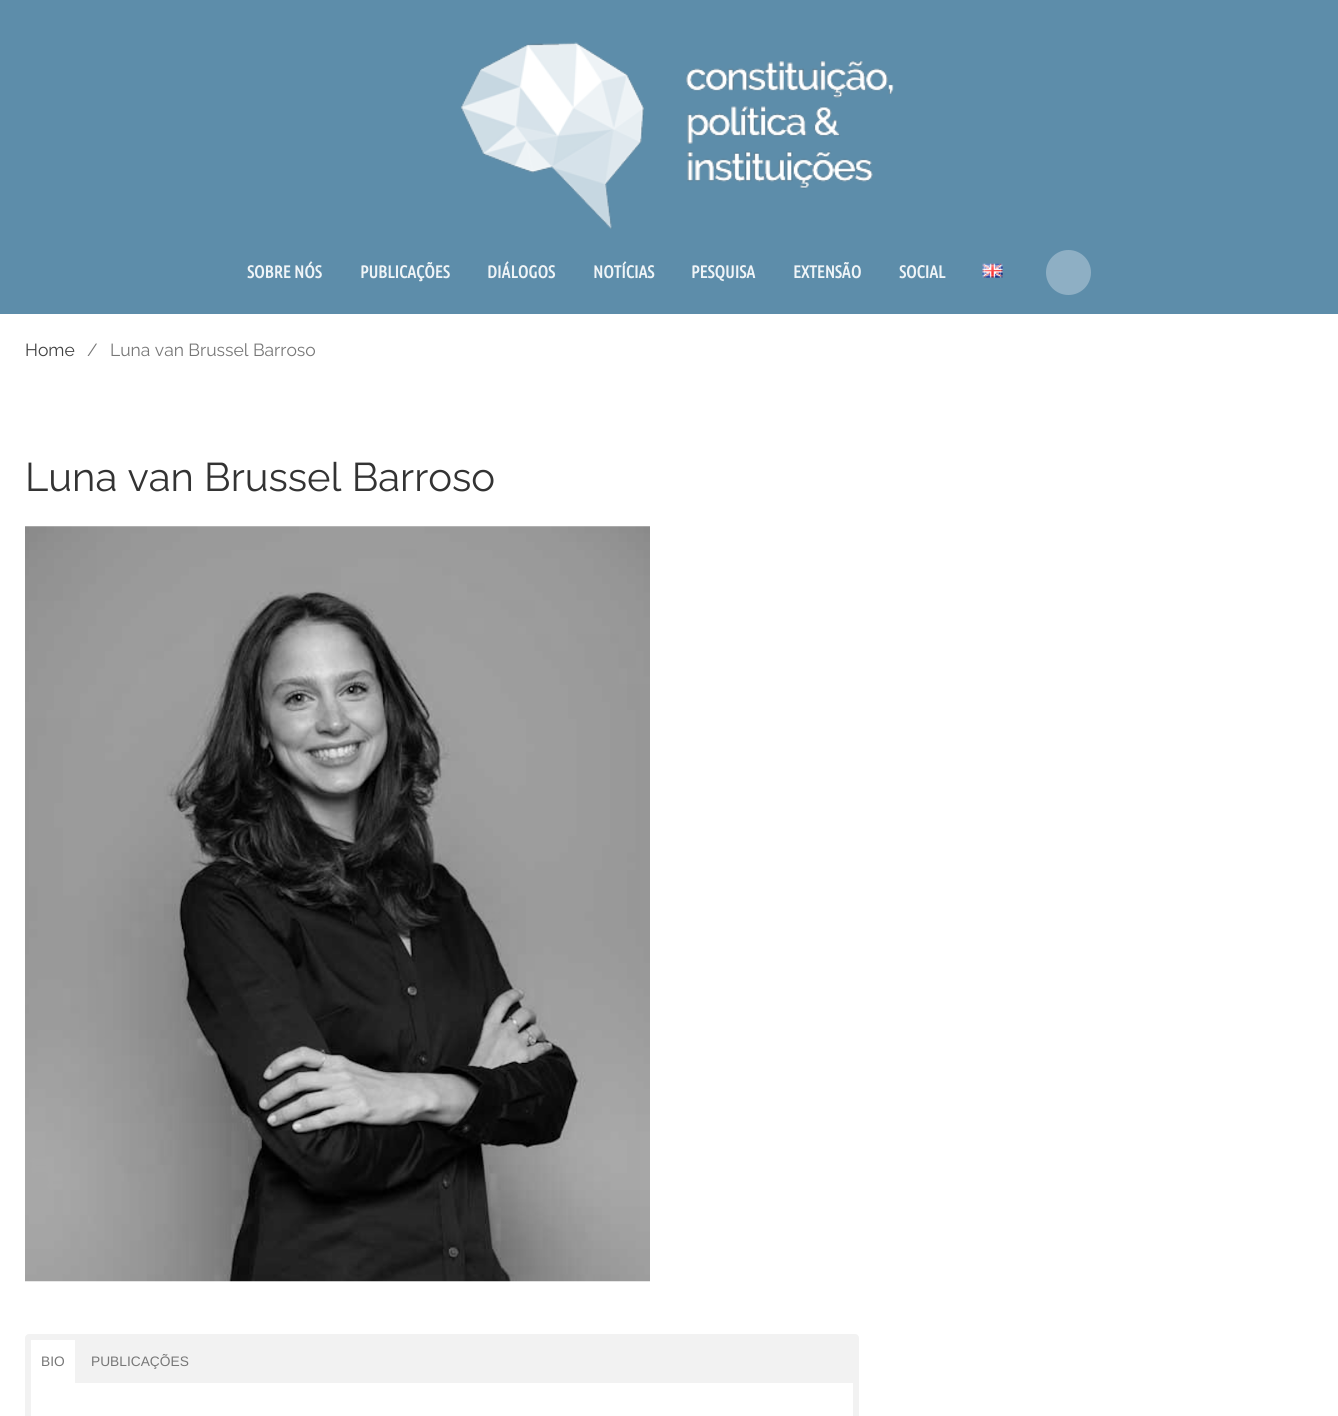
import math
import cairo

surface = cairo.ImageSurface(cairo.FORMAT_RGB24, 1338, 1416)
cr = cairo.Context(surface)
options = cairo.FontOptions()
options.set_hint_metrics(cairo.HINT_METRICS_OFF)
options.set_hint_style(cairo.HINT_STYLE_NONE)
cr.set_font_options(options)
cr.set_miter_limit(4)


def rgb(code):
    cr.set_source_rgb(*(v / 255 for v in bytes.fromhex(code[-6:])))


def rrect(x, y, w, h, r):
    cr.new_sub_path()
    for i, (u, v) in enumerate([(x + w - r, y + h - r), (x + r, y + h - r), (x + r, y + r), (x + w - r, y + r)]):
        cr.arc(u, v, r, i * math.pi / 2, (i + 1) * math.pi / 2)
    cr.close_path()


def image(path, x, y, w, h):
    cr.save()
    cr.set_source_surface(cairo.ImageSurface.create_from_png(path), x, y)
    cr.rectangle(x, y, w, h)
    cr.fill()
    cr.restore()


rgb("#ffffff")
cr.paint()
rgb("#5d8daa")
cr.rectangle(0, 0, 1338, 314)
cr.fill()
image("img/1.png", 460, 42, 434, 187)
image("img/2.png", 982, 263, 21, 15)
rgb("#8eafc4")
cr.arc(1068.5, 272.5, 22.5, 0, 2 * math.pi)
cr.fill()
image("img/3.png", 25, 526, 625, 756)
rgb("#f2f2f2")
rrect(25, 1334, 834, 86, 4)
cr.fill()
rgb("#ffffff")
cr.rectangle(31, 1340, 44, 43)
cr.fill()
cr.rectangle(31, 1383, 822, 33)
cr.fill()
cr.select_font_face("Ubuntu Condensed", cairo.FONT_SLANT_NORMAL, cairo.FONT_WEIGHT_BOLD)
cr.set_font_size(17.5)
rgb("#eff4f7")
for x, y, s in [
    (247, 278, "SOBRE NÓS"),
    (360, 278, "PUBLICAÇÕES"),
    (487, 278, "DIÁLOGOS"),
    (593, 278, "NOTÍCIAS"),
    (691, 278, "PESQUISA"),
    (793, 278, "EXTENSÃO"),
    (899, 278, "SOCIAL"),
]:
    cr.move_to(x, y)
    cr.show_text(s)
cr.select_font_face("Raleway Thin")
rgb("#404040")
cr.move_to(25, 356)
cr.show_text("Home")
rgb("#777777")
cr.move_to(87, 356)
cr.show_text("/")
cr.move_to(110, 356)
cr.show_text("Luna van Brussel Barroso")
cr.set_font_size(40)
rgb("#333333")
cr.move_to(25, 491)
cr.show_text("Luna van Brussel Barroso")
cr.select_font_face("Liberation Sans")
cr.set_font_size(13.75)
rgb("#777777")
cr.move_to(41, 1366)
cr.show_text("BIO")
cr.move_to(91, 1366)
cr.show_text("PUBLICAÇÕES")
surface.write_to_png("page.png")
